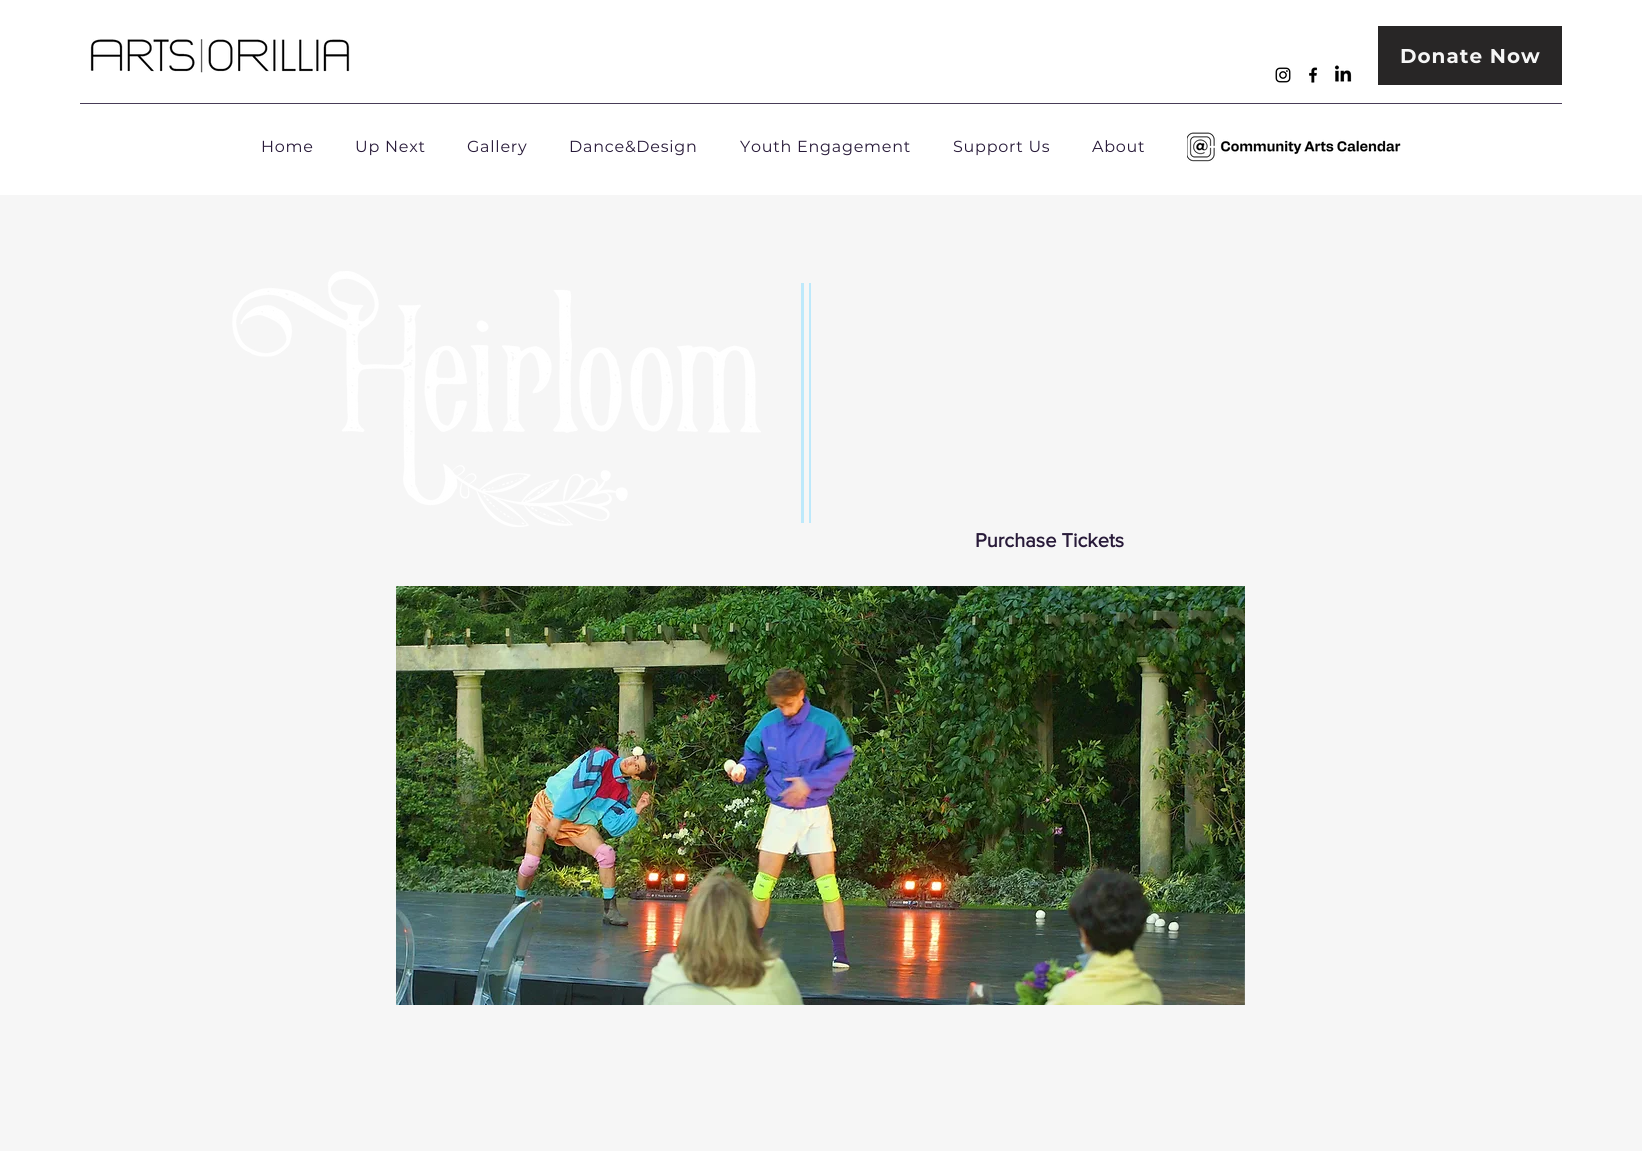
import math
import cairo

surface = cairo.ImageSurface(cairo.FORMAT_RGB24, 1642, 1151)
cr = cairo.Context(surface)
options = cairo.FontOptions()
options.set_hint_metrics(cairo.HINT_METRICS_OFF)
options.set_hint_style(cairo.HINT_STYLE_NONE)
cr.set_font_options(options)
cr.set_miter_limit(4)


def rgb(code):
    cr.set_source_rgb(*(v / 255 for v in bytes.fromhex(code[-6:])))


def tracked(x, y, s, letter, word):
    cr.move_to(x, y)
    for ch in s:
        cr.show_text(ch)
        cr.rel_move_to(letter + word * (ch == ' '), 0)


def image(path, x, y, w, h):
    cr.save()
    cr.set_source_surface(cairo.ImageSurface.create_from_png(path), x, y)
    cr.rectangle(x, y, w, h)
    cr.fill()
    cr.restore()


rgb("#f6f6f6")
cr.paint()
rgb("#ffffff")
cr.rectangle(0, 0, 1642, 195)
cr.fill()
image("img/1.png", 90, 39, 260, 34)
rgb("#282626")
cr.rectangle(1378, 26, 184, 59)
cr.fill()
image("img/2.png", 1275, 67, 16, 16)
image("img/3.png", 1309, 67, 9, 16)
image("img/4.png", 1334, 65, 18, 17)
rgb("#483c57")
cr.rectangle(80, 103, 1482, 1)
cr.fill()
image("img/5.png", 1187, 132, 214, 30)
image("img/6.png", 232, 271, 529, 256)
rgb("#bde9fb")
cr.rectangle(809, 283, 2, 240)
cr.fill()
cr.rectangle(801, 283, 3, 240)
cr.fill()
image("img/7.png", 396, 586, 849, 419)
cr.select_font_face("Montserrat", cairo.FONT_SLANT_NORMAL, cairo.FONT_WEIGHT_BOLD)
cr.set_font_size(20)
rgb("#f6f6f6")
tracked(1400, 63, "Donate Now", 1, 0)
cr.select_font_face("Montserrat")
cr.set_font_size(16)
rgb("#281a39")
for x, y, s in [
    (261, 152, "Home"),
    (355, 152, "Up Next"),
    (467, 152, "Gallery"),
    (569, 152, "Dance&Design"),
    (740, 152, "Youth Engagement"),
    (953, 152, "Support Us"),
    (1092, 152, "About"),
]:
    tracked(x, y, s, 0.75, 0)
cr.select_font_face("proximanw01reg", cairo.FONT_SLANT_NORMAL, cairo.FONT_WEIGHT_BOLD)
cr.set_font_size(20)
cr.move_to(975, 547)
cr.show_text("Purchase Tickets")
surface.write_to_png("page.png")
